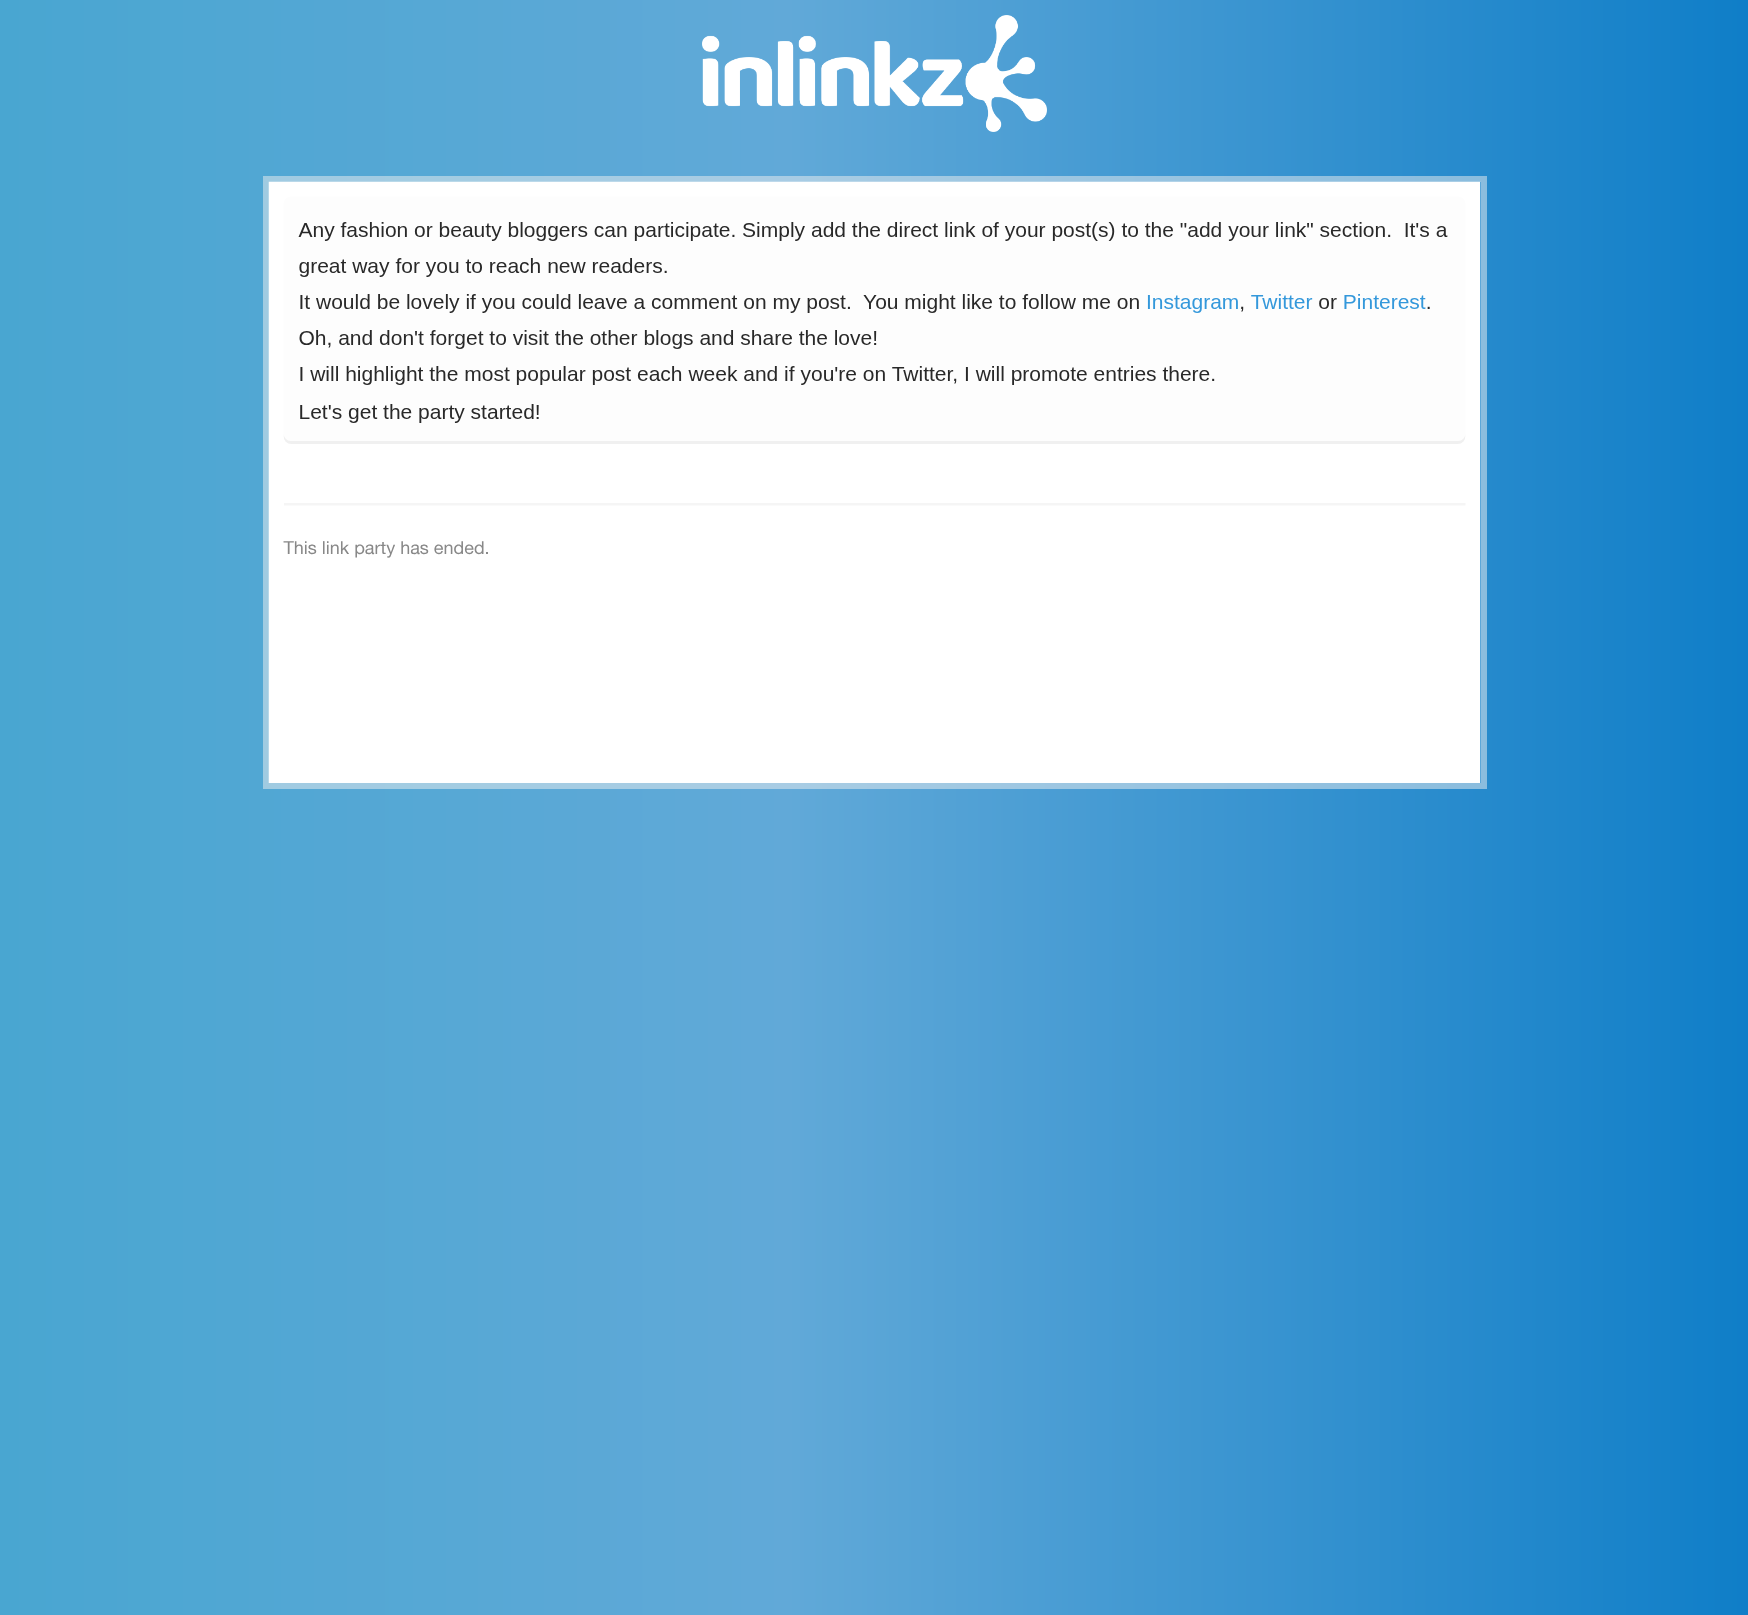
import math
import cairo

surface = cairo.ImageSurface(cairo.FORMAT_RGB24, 1748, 1615)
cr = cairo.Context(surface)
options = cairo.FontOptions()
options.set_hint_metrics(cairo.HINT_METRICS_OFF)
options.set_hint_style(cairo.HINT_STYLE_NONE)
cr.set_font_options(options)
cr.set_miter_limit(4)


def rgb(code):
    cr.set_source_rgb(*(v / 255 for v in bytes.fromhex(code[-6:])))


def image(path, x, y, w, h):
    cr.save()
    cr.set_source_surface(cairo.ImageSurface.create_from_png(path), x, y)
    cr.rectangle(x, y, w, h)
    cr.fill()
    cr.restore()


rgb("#ffffff")
cr.paint()
gradient = cairo.LinearGradient(0, 808, 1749, 808)
gradient.add_color_stop_rgba(0, 0.286, 0.651, 0.82, 1)
gradient.add_color_stop_rgba(0.45, 0.38, 0.663, 0.847, 1)
gradient.add_color_stop_rgba(1, 0.059, 0.494, 0.784, 1)
cr.set_source(gradient)
cr.rectangle(0, 0, 1748, 1615)
cr.fill()
image("img/1.png", 702, 15, 345, 117)
cr.rectangle(266, 179, 1218, 607)
cr.set_source_rgba(0.941, 0.941, 0.941, 0.5)
cr.set_line_width(6)
cr.stroke()
image("img/2.png", 268, 181, 1213, 602)
surface.write_to_png("page.png")
